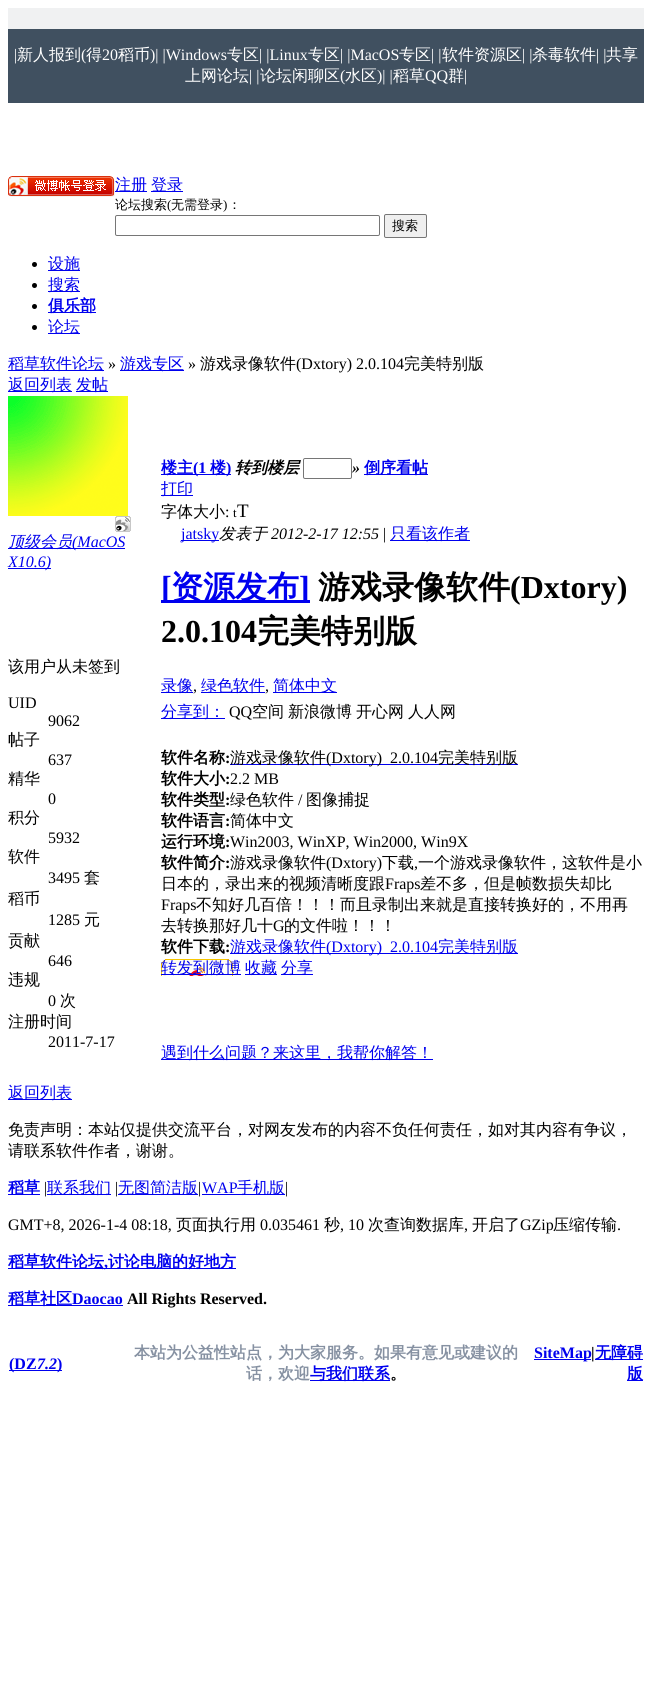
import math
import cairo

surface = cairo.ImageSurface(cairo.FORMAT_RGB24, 652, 1685)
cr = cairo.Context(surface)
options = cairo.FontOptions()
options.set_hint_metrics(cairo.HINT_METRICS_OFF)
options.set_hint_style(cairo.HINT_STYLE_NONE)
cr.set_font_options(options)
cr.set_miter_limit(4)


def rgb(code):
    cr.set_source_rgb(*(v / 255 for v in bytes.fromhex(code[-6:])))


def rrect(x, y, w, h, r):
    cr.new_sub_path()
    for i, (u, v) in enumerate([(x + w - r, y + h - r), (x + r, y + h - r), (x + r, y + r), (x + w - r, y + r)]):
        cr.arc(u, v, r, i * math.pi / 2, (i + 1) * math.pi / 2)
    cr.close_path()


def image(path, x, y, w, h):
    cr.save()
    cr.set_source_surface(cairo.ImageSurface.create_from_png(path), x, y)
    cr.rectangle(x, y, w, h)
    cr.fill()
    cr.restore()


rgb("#ffffff")
cr.paint()
rgb("#f0f1f2")
cr.rectangle(8, 8, 636, 21)
cr.fill()
rgb("#405060")
cr.rectangle(8, 29, 636, 74)
cr.fill()
image("img/1.png", 8, 176, 107, 21)
rgb("#0000ee")
cr.rectangle(115, 191, 32, 1)
cr.fill()
cr.rectangle(151, 191, 32, 1)
cr.fill()
rrect(115.5, 215.5, 264, 20, 1.5)
rgb("#767676")
cr.set_line_width(1)
cr.stroke()
rgb("#efefef")
rrect(384.5, 214.5, 42, 23, 1.5)
cr.fill_preserve()
rgb("#767676")
cr.stroke()
rgb("#000000")
cr.arc(34.5, 264.5, 2.5, 0, 2 * math.pi)
cr.fill()
rgb("#0000ee")
cr.rectangle(48, 270, 32, 1)
cr.fill()
rgb("#000000")
cr.arc(34.5, 285.5, 2.5, 0, 2 * math.pi)
cr.fill()
rgb("#0000ee")
cr.rectangle(48, 291, 32, 1)
cr.fill()
rgb("#000000")
cr.arc(34.5, 306.5, 2.5, 0, 2 * math.pi)
cr.fill()
rgb("#0000ee")
cr.rectangle(48, 312, 48, 1)
cr.fill()
rgb("#000000")
cr.arc(34.5, 327.5, 2.5, 0, 2 * math.pi)
cr.fill()
for x, y, w, h, color in [
    (48, 333, 32, 1, "#0000ee"),
    (8, 370, 96, 1, "#0000ee"),
    (120, 370, 64, 1, "#0000ee"),
    (8, 391, 64, 1, "#0000ee"),
    (76, 391, 32, 1, "#0000ee"),
]:
    rgb(color)
    cr.rectangle(x, y, w, h)
    cr.fill()
image("img/2.png", 8, 396, 120, 120)
image("img/3.png", 115, 516, 16, 16)
for x, y, w, h, color in [
    (8, 548, 117, 1, "#0000ee"),
    (8, 568, 43, 1, "#0000ee"),
    (161, 474, 70, 1, "#0000ee"),
]:
    rgb(color)
    cr.rectangle(x, y, w, h)
    cr.fill()
rrect(303.5, 458.5, 48, 20, 1.5)
rgb("#767676")
cr.stroke()
for x, y, w, h, color in [
    (364, 474, 64, 1, "#0000ee"),
    (161, 495, 32, 1, "#0000ee"),
    (181, 540, 38, 1, "#0000ee"),
    (390, 540, 80, 1, "#0000ee"),
    (161, 600, 149, 3, "#0000ee"),
    (161, 692, 32, 1, "#0000ee"),
    (201, 692, 64, 1, "#0000ee"),
    (273, 692, 64, 1, "#0000ee"),
    (161, 718, 64, 1, "#0000ee"),
    (230, 764, 288, 1, "#0000ee"),
    (230, 953, 288, 1, "#0000ee"),
]:
    rgb(color)
    cr.rectangle(x, y, w, h)
    cr.fill()
image("img/4.png", 161, 959, 72, 17)
for x, y, w, h, color in [
    (161, 974, 80, 1, "#0000ee"),
    (245, 974, 32, 1, "#0000ee"),
    (281, 974, 32, 1, "#0000ee"),
    (161, 1059, 272, 1, "#0000ee"),
    (8, 1099, 64, 1, "#0000ee"),
    (8, 1194, 32, 1, "#0000ee"),
    (47, 1194, 64, 1, "#0000ee"),
    (118, 1194, 80, 1, "#0000ee"),
    (202, 1194, 83, 1, "#0000ee"),
    (8, 1268, 228, 1, "#0000ee"),
    (8, 1305, 115, 1, "#0000ee"),
    (9, 1370, 53, 1, "#0000ee"),
    (310, 1380, 80, 1, "#0000ee"),
    (534, 1359, 57, 1, "#0000ee"),
    (595, 1359, 48, 1, "#0000ee"),
    (627, 1380, 16, 1, "#0000ee"),
]:
    rgb(color)
    cr.rectangle(x, y, w, h)
    cr.fill()
cr.select_font_face("Liberation Serif")
cr.set_font_size(16)
rgb("#ffffff")
cr.move_to(14, 60)
cr.show_text("|")
cr.select_font_face("WenQuanYi Zen Hei Medium")
cr.move_to(17, 60)
cr.show_text("新人报到")
cr.select_font_face("Liberation Serif")
cr.move_to(81, 60)
cr.show_text("(")
cr.select_font_face("WenQuanYi Zen Hei Medium")
cr.move_to(86, 60)
cr.show_text("得")
cr.select_font_face("Liberation Serif")
cr.move_to(102, 60)
cr.show_text("20")
cr.select_font_face("WenQuanYi Zen Hei Medium")
cr.move_to(118, 60)
cr.show_text("稻币")
cr.select_font_face("Liberation Serif")
cr.move_to(150, 60)
cr.show_text(")| |Windows")
cr.select_font_face("WenQuanYi Zen Hei Medium")
cr.move_to(227, 60)
cr.show_text("专区")
cr.select_font_face("Liberation Serif")
cr.move_to(259, 60)
cr.show_text("| |Linux")
cr.select_font_face("WenQuanYi Zen Hei Medium")
cr.move_to(308, 60)
cr.show_text("专区")
cr.select_font_face("Liberation Serif")
cr.move_to(340, 60)
cr.show_text("| |MacOS")
cr.select_font_face("WenQuanYi Zen Hei Medium")
cr.move_to(399, 60)
cr.show_text("专区")
cr.select_font_face("Liberation Serif")
cr.move_to(431, 60)
cr.show_text("| |")
cr.select_font_face("WenQuanYi Zen Hei Medium")
cr.move_to(442, 60)
cr.show_text("软件资源区")
cr.select_font_face("Liberation Serif")
cr.move_to(522, 60)
cr.show_text("| |")
cr.select_font_face("WenQuanYi Zen Hei Medium")
cr.move_to(532, 60)
cr.show_text("杀毒软件")
cr.select_font_face("Liberation Serif")
cr.move_to(596, 60)
cr.show_text("| |")
cr.select_font_face("WenQuanYi Zen Hei Medium")
cr.move_to(606, 60)
cr.show_text("共享")
cr.move_to(185, 81)
cr.show_text("上网论坛")
cr.select_font_face("Liberation Serif")
cr.move_to(249, 81)
cr.show_text("| |")
cr.select_font_face("WenQuanYi Zen Hei Medium")
cr.move_to(260, 81)
cr.show_text("论坛闲聊区")
cr.select_font_face("Liberation Serif")
cr.move_to(340, 81)
cr.show_text("(")
cr.select_font_face("WenQuanYi Zen Hei Medium")
cr.move_to(345, 81)
cr.show_text("水区")
cr.select_font_face("Liberation Serif")
cr.move_to(377, 81)
cr.show_text(")| |")
cr.select_font_face("WenQuanYi Zen Hei Medium")
cr.move_to(393, 81)
cr.show_text("稻草")
cr.select_font_face("Liberation Serif")
cr.move_to(425, 81)
cr.show_text("QQ")
cr.select_font_face("WenQuanYi Zen Hei Medium")
cr.move_to(448, 81)
cr.show_text("群")
cr.select_font_face("Liberation Serif")
cr.move_to(464, 81)
cr.show_text("|")
cr.select_font_face("WenQuanYi Zen Hei Medium")
rgb("#0000ee")
cr.move_to(115, 190)
cr.show_text("注册")
cr.move_to(151, 190)
cr.show_text("登录")
cr.set_font_size(13)
rgb("#000000")
cr.move_to(115, 209)
cr.show_text("论坛搜索")
cr.select_font_face("Liberation Serif")
cr.move_to(167, 209)
cr.show_text("(")
cr.select_font_face("WenQuanYi Zen Hei Medium")
cr.move_to(171, 209)
cr.show_text("无需登录")
cr.select_font_face("Liberation Serif")
cr.move_to(223, 209)
cr.show_text(")")
cr.select_font_face("WenQuanYi Zen Hei Medium")
cr.move_to(228, 209)
cr.show_text("：")
cr.move_to(392, 230)
cr.show_text("搜索")
cr.set_font_size(16)
rgb("#0000ee")
cr.move_to(48, 269)
cr.show_text("设施")
cr.move_to(48, 290)
cr.show_text("搜索")
cr.select_font_face("WenQuanYi Zen Hei", cairo.FONT_SLANT_NORMAL, cairo.FONT_WEIGHT_BOLD)
cr.move_to(48, 311)
cr.show_text("俱乐部")
cr.select_font_face("WenQuanYi Zen Hei Medium")
cr.move_to(48, 332)
cr.show_text("论坛")
cr.move_to(8, 369)
cr.show_text("稻草软件论坛")
cr.select_font_face("Liberation Serif")
rgb("#000000")
cr.move_to(108, 369)
cr.show_text("»")
cr.select_font_face("WenQuanYi Zen Hei Medium")
rgb("#0000ee")
cr.move_to(120, 369)
cr.show_text("游戏专区")
cr.select_font_face("Liberation Serif")
rgb("#000000")
cr.move_to(188, 369)
cr.show_text("»")
cr.select_font_face("WenQuanYi Zen Hei Medium")
cr.move_to(200, 369)
cr.show_text("游戏录像软件")
cr.select_font_face("Liberation Serif")
cr.move_to(296, 369)
cr.show_text("(Dxtory) 2.0.104")
cr.select_font_face("WenQuanYi Zen Hei Medium")
cr.move_to(404, 369)
cr.show_text("完美特别版")
rgb("#0000ee")
cr.move_to(8, 390)
cr.show_text("返回列表")
cr.move_to(76, 390)
cr.show_text("发帖")
cr.select_font_face("WenQuanYi Zen Hei Medium", cairo.FONT_SLANT_ITALIC)
cr.move_to(8, 547)
cr.show_text("顶级会员")
cr.select_font_face("Liberation Serif", cairo.FONT_SLANT_ITALIC)
cr.move_to(72, 547)
cr.show_text("(MacOS")
cr.move_to(8, 567)
cr.show_text("X10.6)")
cr.select_font_face("WenQuanYi Zen Hei Medium")
rgb("#000000")
cr.move_to(8, 672)
cr.show_text("该用户从未签到")
cr.select_font_face("Liberation Serif")
cr.move_to(8, 708)
cr.show_text("UID")
cr.move_to(48, 726)
cr.show_text("9062")
cr.select_font_face("WenQuanYi Zen Hei Medium")
cr.move_to(8, 745)
cr.show_text("帖子")
cr.select_font_face("Liberation Serif")
cr.move_to(48, 765)
cr.show_text("637")
cr.select_font_face("WenQuanYi Zen Hei Medium")
cr.move_to(8, 784)
cr.show_text("精华")
cr.select_font_face("Liberation Serif")
cr.move_to(48, 804)
cr.show_text("0")
cr.select_font_face("WenQuanYi Zen Hei Medium")
cr.move_to(8, 823)
cr.show_text("积分")
cr.select_font_face("Liberation Serif")
cr.move_to(48, 843)
cr.show_text("5932")
cr.select_font_face("WenQuanYi Zen Hei Medium")
cr.move_to(8, 862)
cr.show_text("软件")
cr.select_font_face("Liberation Serif")
cr.move_to(48, 883)
cr.show_text("3495")
cr.select_font_face("WenQuanYi Zen Hei Medium")
cr.move_to(84, 883)
cr.show_text("套")
cr.move_to(8, 904)
cr.show_text("稻币")
cr.select_font_face("Liberation Serif")
cr.move_to(48, 925)
cr.show_text("1285")
cr.select_font_face("WenQuanYi Zen Hei Medium")
cr.move_to(84, 925)
cr.show_text("元")
cr.move_to(8, 946)
cr.show_text("贡献")
cr.select_font_face("Liberation Serif")
cr.move_to(48, 966)
cr.show_text("646")
cr.select_font_face("WenQuanYi Zen Hei Medium")
cr.move_to(8, 985)
cr.show_text("违规")
cr.select_font_face("Liberation Serif")
cr.move_to(48, 1006)
cr.show_text("0")
cr.select_font_face("WenQuanYi Zen Hei Medium")
cr.move_to(60, 1006)
cr.show_text("次")
cr.move_to(8, 1027)
cr.show_text("注册时间")
cr.select_font_face("Liberation Serif")
cr.move_to(48, 1047)
cr.show_text("2011-7-17")
cr.select_font_face("WenQuanYi Zen Hei", cairo.FONT_SLANT_NORMAL, cairo.FONT_WEIGHT_BOLD)
rgb("#0000ee")
cr.move_to(161, 473)
cr.show_text("楼主")
cr.select_font_face("Liberation Serif", cairo.FONT_SLANT_NORMAL, cairo.FONT_WEIGHT_BOLD)
cr.move_to(193, 473)
cr.show_text("(1")
cr.select_font_face("WenQuanYi Zen Hei", cairo.FONT_SLANT_NORMAL, cairo.FONT_WEIGHT_BOLD)
cr.move_to(210, 473)
cr.show_text("楼")
cr.select_font_face("Liberation Serif", cairo.FONT_SLANT_NORMAL, cairo.FONT_WEIGHT_BOLD)
cr.move_to(226, 473)
cr.show_text(")")
cr.select_font_face("WenQuanYi Zen Hei", cairo.FONT_SLANT_ITALIC, cairo.FONT_WEIGHT_BOLD)
rgb("#000000")
cr.move_to(235, 473)
cr.show_text("转到楼层")
cr.select_font_face("Liberation Serif", cairo.FONT_SLANT_ITALIC, cairo.FONT_WEIGHT_BOLD)
cr.move_to(352, 473)
cr.show_text("»")
cr.select_font_face("WenQuanYi Zen Hei", cairo.FONT_SLANT_NORMAL, cairo.FONT_WEIGHT_BOLD)
rgb("#0000ee")
cr.move_to(364, 473)
cr.show_text("倒序看帖")
cr.select_font_face("WenQuanYi Zen Hei Medium")
cr.move_to(161, 494)
cr.show_text("打印")
rgb("#000000")
cr.move_to(161, 517)
cr.show_text("字体大小")
cr.select_font_face("Liberation Serif")
cr.move_to(225, 517)
cr.show_text(":")
cr.set_font_size(13)
cr.move_to(233, 517)
cr.show_text("t")
cr.set_font_size(19)
cr.move_to(237, 517)
cr.show_text("T")
cr.set_font_size(16)
rgb("#0000ee")
cr.move_to(181, 539)
cr.show_text("jatsky")
cr.select_font_face("WenQuanYi Zen Hei Medium", cairo.FONT_SLANT_ITALIC)
rgb("#000000")
cr.move_to(219, 539)
cr.show_text("发表于")
cr.select_font_face("Liberation Serif", cairo.FONT_SLANT_ITALIC)
cr.move_to(271, 539)
cr.show_text("2012-2-17 12:55")
cr.select_font_face("Liberation Serif")
cr.move_to(383, 539)
cr.show_text("|")
cr.select_font_face("WenQuanYi Zen Hei Medium")
rgb("#0000ee")
cr.move_to(390, 539)
cr.show_text("只看该作者")
cr.select_font_face("Liberation Serif", cairo.FONT_SLANT_NORMAL, cairo.FONT_WEIGHT_BOLD)
cr.set_font_size(32)
cr.move_to(161, 598)
cr.show_text("[")
cr.select_font_face("WenQuanYi Zen Hei", cairo.FONT_SLANT_NORMAL, cairo.FONT_WEIGHT_BOLD)
cr.move_to(171, 598)
cr.show_text("资源发布")
cr.select_font_face("Liberation Serif", cairo.FONT_SLANT_NORMAL, cairo.FONT_WEIGHT_BOLD)
cr.move_to(299, 598)
cr.show_text("]")
cr.select_font_face("WenQuanYi Zen Hei", cairo.FONT_SLANT_NORMAL, cairo.FONT_WEIGHT_BOLD)
rgb("#000000")
cr.move_to(318, 598)
cr.show_text("游戏录像软件")
cr.select_font_face("Liberation Serif", cairo.FONT_SLANT_NORMAL, cairo.FONT_WEIGHT_BOLD)
cr.move_to(510, 598)
cr.show_text("(Dxtory)")
cr.move_to(161, 642)
cr.show_text("2.0.104")
cr.select_font_face("WenQuanYi Zen Hei", cairo.FONT_SLANT_NORMAL, cairo.FONT_WEIGHT_BOLD)
cr.move_to(257, 642)
cr.show_text("完美特别版")
cr.select_font_face("WenQuanYi Zen Hei Medium")
cr.set_font_size(16)
rgb("#0000ee")
cr.move_to(161, 691)
cr.show_text("录像")
cr.select_font_face("Liberation Serif")
rgb("#000000")
cr.move_to(193, 691)
cr.show_text(",")
cr.select_font_face("WenQuanYi Zen Hei Medium")
rgb("#0000ee")
cr.move_to(201, 691)
cr.show_text("绿色软件")
cr.select_font_face("Liberation Serif")
rgb("#000000")
cr.move_to(265, 691)
cr.show_text(",")
cr.select_font_face("WenQuanYi Zen Hei Medium")
rgb("#0000ee")
cr.move_to(273, 691)
cr.show_text("简体中文")
cr.move_to(161, 717)
cr.show_text("分享到：")
cr.select_font_face("Liberation Serif")
rgb("#000000")
cr.move_to(229, 717)
cr.show_text("QQ")
cr.select_font_face("WenQuanYi Zen Hei Medium")
for x, y, s in [
    (252, 717, "空间"),
    (288, 717, "新浪微博"),
    (356, 717, "开心网"),
    (408, 717, "人人网"),
]:
    cr.move_to(x, y)
    cr.show_text(s)
cr.select_font_face("WenQuanYi Zen Hei", cairo.FONT_SLANT_NORMAL, cairo.FONT_WEIGHT_BOLD)
cr.move_to(161, 763)
cr.show_text("软件名称")
cr.select_font_face("Liberation Serif", cairo.FONT_SLANT_NORMAL, cairo.FONT_WEIGHT_BOLD)
cr.move_to(225, 763)
cr.show_text(":")
cr.select_font_face("WenQuanYi Zen Hei Medium")
cr.move_to(230, 763)
cr.show_text("游戏录像软件")
cr.select_font_face("Liberation Serif")
cr.move_to(326, 763)
cr.show_text("(Dxtory)  2.0.104")
cr.select_font_face("WenQuanYi Zen Hei Medium")
cr.move_to(438, 763)
cr.show_text("完美特别版")
cr.select_font_face("WenQuanYi Zen Hei", cairo.FONT_SLANT_NORMAL, cairo.FONT_WEIGHT_BOLD)
cr.move_to(161, 784)
cr.show_text("软件大小")
cr.select_font_face("Liberation Serif", cairo.FONT_SLANT_NORMAL, cairo.FONT_WEIGHT_BOLD)
cr.move_to(225, 784)
cr.show_text(":")
cr.select_font_face("Liberation Serif")
cr.move_to(230, 784)
cr.show_text("2.2 MB")
cr.select_font_face("WenQuanYi Zen Hei", cairo.FONT_SLANT_NORMAL, cairo.FONT_WEIGHT_BOLD)
cr.move_to(161, 805)
cr.show_text("软件类型")
cr.select_font_face("Liberation Serif", cairo.FONT_SLANT_NORMAL, cairo.FONT_WEIGHT_BOLD)
cr.move_to(225, 805)
cr.show_text(":")
cr.select_font_face("WenQuanYi Zen Hei Medium")
cr.move_to(230, 805)
cr.show_text("绿色软件")
cr.select_font_face("Liberation Serif")
cr.move_to(298, 805)
cr.show_text("/")
cr.select_font_face("WenQuanYi Zen Hei Medium")
cr.move_to(306, 805)
cr.show_text("图像捕捉")
cr.select_font_face("WenQuanYi Zen Hei", cairo.FONT_SLANT_NORMAL, cairo.FONT_WEIGHT_BOLD)
cr.move_to(161, 826)
cr.show_text("软件语言")
cr.select_font_face("Liberation Serif", cairo.FONT_SLANT_NORMAL, cairo.FONT_WEIGHT_BOLD)
cr.move_to(225, 826)
cr.show_text(":")
cr.select_font_face("WenQuanYi Zen Hei Medium")
cr.move_to(230, 826)
cr.show_text("简体中文")
cr.select_font_face("WenQuanYi Zen Hei", cairo.FONT_SLANT_NORMAL, cairo.FONT_WEIGHT_BOLD)
cr.move_to(161, 847)
cr.show_text("运行环境")
cr.select_font_face("Liberation Serif", cairo.FONT_SLANT_NORMAL, cairo.FONT_WEIGHT_BOLD)
cr.move_to(225, 847)
cr.show_text(":")
cr.select_font_face("Liberation Serif")
cr.move_to(230, 847)
cr.show_text("Win2003, WinXP, Win2000, Win9X")
cr.select_font_face("WenQuanYi Zen Hei", cairo.FONT_SLANT_NORMAL, cairo.FONT_WEIGHT_BOLD)
cr.move_to(161, 868)
cr.show_text("软件简介")
cr.select_font_face("Liberation Serif", cairo.FONT_SLANT_NORMAL, cairo.FONT_WEIGHT_BOLD)
cr.move_to(225, 868)
cr.show_text(":")
cr.select_font_face("WenQuanYi Zen Hei Medium")
cr.move_to(230, 868)
cr.show_text("游戏录像软件")
cr.select_font_face("Liberation Serif")
cr.move_to(326, 868)
cr.show_text("(Dxtory)")
cr.select_font_face("WenQuanYi Zen Hei Medium")
cr.move_to(382, 868)
cr.show_text("下载")
cr.select_font_face("Liberation Serif")
cr.move_to(414, 868)
cr.show_text(",")
cr.select_font_face("WenQuanYi Zen Hei Medium")
cr.move_to(418, 868)
cr.show_text("一个游戏录像软件，这软件是小")
cr.move_to(161, 889)
cr.show_text("日本的，录出来的视频清晰度跟")
cr.select_font_face("Liberation Serif")
cr.move_to(385, 889)
cr.show_text("Fraps")
cr.select_font_face("WenQuanYi Zen Hei Medium")
cr.move_to(420, 889)
cr.show_text("差不多，但是帧数损失却比")
cr.select_font_face("Liberation Serif")
cr.move_to(161, 910)
cr.show_text("Fraps")
cr.select_font_face("WenQuanYi Zen Hei Medium")
cr.move_to(196, 910)
cr.show_text("不知好几百倍！！！而且录制出来就是直接转换好的，不用再")
cr.move_to(161, 931)
cr.show_text("去转换那好几十")
cr.select_font_face("Liberation Serif")
cr.move_to(273, 931)
cr.show_text("G")
cr.select_font_face("WenQuanYi Zen Hei Medium")
cr.move_to(284, 931)
cr.show_text("的文件啦！！！")
cr.select_font_face("WenQuanYi Zen Hei", cairo.FONT_SLANT_NORMAL, cairo.FONT_WEIGHT_BOLD)
cr.move_to(161, 952)
cr.show_text("软件下载")
cr.select_font_face("Liberation Serif", cairo.FONT_SLANT_NORMAL, cairo.FONT_WEIGHT_BOLD)
cr.move_to(225, 952)
cr.show_text(":")
cr.select_font_face("WenQuanYi Zen Hei Medium")
rgb("#0000ee")
cr.move_to(230, 952)
cr.show_text("游戏录像软件")
cr.select_font_face("Liberation Serif")
cr.move_to(326, 952)
cr.show_text("(Dxtory)  2.0.104")
cr.select_font_face("WenQuanYi Zen Hei Medium")
for x, y, s in [
    (438, 952, "完美特别版"),
    (161, 973, "转发到微博"),
    (245, 973, "收藏"),
    (281, 973, "分享"),
    (161, 1058, "遇到什么问题？来这里，我帮你解答！"),
    (8, 1098, "返回列表"),
]:
    cr.move_to(x, y)
    cr.show_text(s)
rgb("#000000")
cr.move_to(8, 1135)
cr.show_text("免责声明：本站仅提供交流平台，对网友发布的内容不负任何责任，如对其内容有争议，")
cr.move_to(8, 1156)
cr.show_text("请联系软件作者，谢谢。")
cr.select_font_face("WenQuanYi Zen Hei", cairo.FONT_SLANT_NORMAL, cairo.FONT_WEIGHT_BOLD)
rgb("#0000ee")
cr.move_to(8, 1193)
cr.show_text("稻草")
cr.select_font_face("Liberation Serif")
rgb("#000000")
cr.move_to(44, 1193)
cr.show_text("|")
cr.select_font_face("WenQuanYi Zen Hei Medium")
rgb("#0000ee")
cr.move_to(47, 1193)
cr.show_text("联系我们")
cr.select_font_face("Liberation Serif")
rgb("#000000")
cr.move_to(115, 1193)
cr.show_text("|")
cr.select_font_face("WenQuanYi Zen Hei Medium")
rgb("#0000ee")
cr.move_to(118, 1193)
cr.show_text("无图简洁版")
cr.select_font_face("Liberation Serif")
rgb("#000000")
cr.move_to(198, 1193)
cr.show_text("|")
rgb("#0000ee")
cr.move_to(202, 1193)
cr.show_text("WAP")
cr.select_font_face("WenQuanYi Zen Hei Medium")
cr.move_to(237, 1193)
cr.show_text("手机版")
cr.select_font_face("Liberation Serif")
rgb("#000000")
cr.move_to(285, 1193)
cr.show_text("|")
cr.move_to(8, 1230)
cr.show_text("GMT+8, 2026-1-4 08:18,")
cr.select_font_face("WenQuanYi Zen Hei Medium")
cr.move_to(176, 1230)
cr.show_text("页面执行用")
cr.select_font_face("Liberation Serif")
cr.move_to(260, 1230)
cr.show_text("0.035461")
cr.select_font_face("WenQuanYi Zen Hei Medium")
cr.move_to(324, 1230)
cr.show_text("秒")
cr.select_font_face("Liberation Serif")
cr.move_to(340, 1230)
cr.show_text(", 10")
cr.select_font_face("WenQuanYi Zen Hei Medium")
cr.move_to(368, 1230)
cr.show_text("次查询数据库")
cr.select_font_face("Liberation Serif")
cr.move_to(464, 1230)
cr.show_text(",")
cr.select_font_face("WenQuanYi Zen Hei Medium")
cr.move_to(472, 1230)
cr.show_text("开启了")
cr.select_font_face("Liberation Serif")
cr.move_to(520, 1230)
cr.show_text("GZip")
cr.select_font_face("WenQuanYi Zen Hei Medium")
cr.move_to(553, 1230)
cr.show_text("压缩传输")
cr.select_font_face("Liberation Serif")
cr.move_to(617, 1230)
cr.show_text(".")
cr.select_font_face("WenQuanYi Zen Hei", cairo.FONT_SLANT_NORMAL, cairo.FONT_WEIGHT_BOLD)
rgb("#0000ee")
cr.move_to(8, 1267)
cr.show_text("稻草软件论坛")
cr.select_font_face("Liberation Serif", cairo.FONT_SLANT_NORMAL, cairo.FONT_WEIGHT_BOLD)
cr.move_to(104, 1267)
cr.show_text(",")
cr.select_font_face("WenQuanYi Zen Hei", cairo.FONT_SLANT_NORMAL, cairo.FONT_WEIGHT_BOLD)
cr.move_to(108, 1267)
cr.show_text("讨论电脑的好地方")
cr.move_to(8, 1304)
cr.show_text("稻草社区")
cr.select_font_face("Liberation Serif", cairo.FONT_SLANT_NORMAL, cairo.FONT_WEIGHT_BOLD)
cr.move_to(72, 1304)
cr.show_text("Daocao")
rgb("#000000")
cr.move_to(127, 1304)
cr.show_text("All Rights Reserved.")
rgb("#0000ee")
cr.move_to(9, 1369)
cr.show_text("(DZ")
cr.select_font_face("Liberation Serif", cairo.FONT_SLANT_ITALIC, cairo.FONT_WEIGHT_BOLD)
cr.move_to(37, 1369)
cr.show_text("7.2")
cr.select_font_face("Liberation Serif", cairo.FONT_SLANT_NORMAL, cairo.FONT_WEIGHT_BOLD)
cr.move_to(57, 1369)
cr.show_text(")")
cr.select_font_face("WenQuanYi Zen Hei", cairo.FONT_SLANT_NORMAL, cairo.FONT_WEIGHT_BOLD)
rgb("#8691a2")
cr.move_to(134, 1358)
cr.show_text("本站为公益性站点，为大家服务。如果有意见或建议的")
cr.move_to(246, 1379)
cr.show_text("话，欢迎")
rgb("#0000ee")
cr.move_to(310, 1379)
cr.show_text("与我们联系")
rgb("#000000")
cr.move_to(390, 1379)
cr.show_text("。")
cr.select_font_face("Liberation Serif", cairo.FONT_SLANT_NORMAL, cairo.FONT_WEIGHT_BOLD)
rgb("#0000ee")
cr.move_to(534, 1358)
cr.show_text("SiteMap")
rgb("#000000")
cr.move_to(591, 1358)
cr.show_text("|")
cr.select_font_face("WenQuanYi Zen Hei", cairo.FONT_SLANT_NORMAL, cairo.FONT_WEIGHT_BOLD)
rgb("#0000ee")
cr.move_to(595, 1358)
cr.show_text("无障碍")
cr.move_to(627, 1379)
cr.show_text("版")
surface.write_to_png("page.png")
